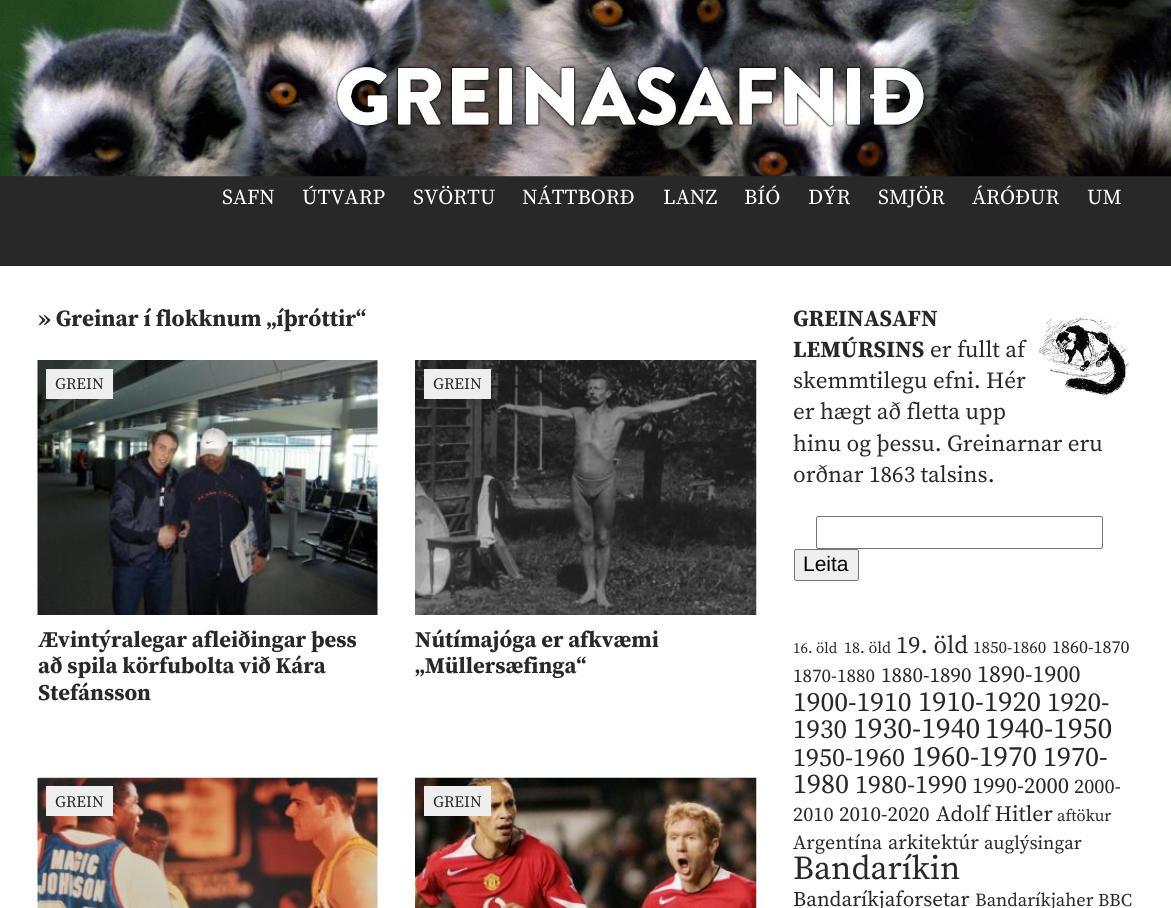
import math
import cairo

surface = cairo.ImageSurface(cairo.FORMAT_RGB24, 1171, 908)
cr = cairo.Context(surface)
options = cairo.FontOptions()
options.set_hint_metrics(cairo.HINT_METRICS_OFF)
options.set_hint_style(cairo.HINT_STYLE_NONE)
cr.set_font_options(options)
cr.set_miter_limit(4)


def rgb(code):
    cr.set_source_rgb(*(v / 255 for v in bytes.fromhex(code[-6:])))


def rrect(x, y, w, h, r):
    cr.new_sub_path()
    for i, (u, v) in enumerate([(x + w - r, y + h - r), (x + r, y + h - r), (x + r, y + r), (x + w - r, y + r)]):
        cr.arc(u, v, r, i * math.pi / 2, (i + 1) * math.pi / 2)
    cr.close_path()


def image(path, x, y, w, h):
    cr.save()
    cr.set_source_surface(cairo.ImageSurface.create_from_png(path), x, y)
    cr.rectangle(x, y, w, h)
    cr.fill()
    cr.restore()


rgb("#ffffff")
cr.paint()
rgb("#282828")
cr.rectangle(0, 176, 1171, 90)
cr.fill()
image("img/1.png", 0, 0, 1171, 177)
image("img/2.png", 37, 360, 341, 255)
rgb("#eeeeee")
cr.rectangle(46, 369, 67, 30)
cr.fill()
image("img/3.png", 415, 360, 342, 255)
cr.rectangle(424, 369, 67, 30)
cr.fill()
image("img/4.png", 37, 777, 341, 131)
cr.rectangle(46, 786, 67, 30)
cr.fill()
image("img/5.png", 415, 777, 342, 131)
cr.rectangle(424, 786, 67, 30)
cr.fill()
image("img/6.png", 1038, 314, 92, 83)
rrect(816.5, 516.5, 286, 32, 2)
rgb("#767676")
cr.set_line_width(1)
cr.stroke()
rgb("#efefef")
rrect(794.5, 549.5, 64, 31, 2)
cr.fill_preserve()
rgb("#767676")
cr.stroke()
cr.select_font_face("Source Serif Pro")
cr.set_font_size(21.25)
rgb("#ffffff")
for x, y, s in [
    (222, 204, "SAFN"),
    (302, 204, "ÚTVARP"),
    (413, 204, "SVÖRTU"),
    (522, 204, "NÁTTBORÐ"),
    (663, 204, "LANZ"),
    (744, 204, "BÍÓ"),
    (808, 204, "DÝR"),
    (878, 204, "SMJÖR"),
    (972, 204, "ÁRÓÐUR"),
    (1087, 204, "UM"),
]:
    cr.move_to(x, y)
    cr.show_text(s)
cr.select_font_face("Source Serif Pro", cairo.FONT_SLANT_NORMAL, cairo.FONT_WEIGHT_BOLD)
cr.set_font_size(23.1)
rgb("#282828")
cr.move_to(38, 326)
cr.show_text("» Greinar í flokknum „íþróttir“")
cr.select_font_face("Source Serif Pro")
cr.set_font_size(16)
cr.move_to(55, 389)
cr.show_text("GREIN")
cr.select_font_face("Source Serif Pro", cairo.FONT_SLANT_NORMAL, cairo.FONT_WEIGHT_BOLD)
cr.set_font_size(22.5)
for x, y, s in [
    (38, 647, "Ævintýralegar afleiðingar þess"),
    (38, 673, "að spila körfubolta við Kára"),
    (38, 700, "Stefánsson"),
]:
    cr.move_to(x, y)
    cr.show_text(s)
cr.select_font_face("Source Serif Pro")
cr.set_font_size(16)
cr.move_to(433, 389)
cr.show_text("GREIN")
cr.select_font_face("Source Serif Pro", cairo.FONT_SLANT_NORMAL, cairo.FONT_WEIGHT_BOLD)
cr.set_font_size(22.5)
cr.move_to(415, 647)
cr.show_text("Nútímajóga er afkvæmi")
cr.move_to(415, 673)
cr.show_text("„Müllersæfinga“")
cr.select_font_face("Source Serif Pro")
cr.set_font_size(16)
cr.move_to(55, 807)
cr.show_text("GREIN")
cr.move_to(433, 807)
cr.show_text("GREIN")
cr.select_font_face("Source Serif Pro", cairo.FONT_SLANT_NORMAL, cairo.FONT_WEIGHT_BOLD)
cr.set_font_size(23.1)
cr.move_to(793, 326)
cr.show_text("GREINASAFN")
cr.move_to(793, 357)
cr.show_text("LEMÚRSINS")
cr.select_font_face("Source Serif Pro")
for x, y, s in [
    (930, 357, "er fullt af"),
    (793, 388, "skemmtilegu efni. Hér"),
    (793, 419, "er hægt að fletta upp"),
    (793, 451, "hinu og þessu. Greinarnar eru"),
    (793, 482, "orðnar 1863 talsins."),
]:
    cr.move_to(x, y)
    cr.show_text(s)
cr.select_font_face("Liberation Sans")
cr.set_font_size(21)
rgb("#000000")
cr.move_to(803, 571)
cr.show_text("Leita")
cr.select_font_face("Source Serif Pro")
cr.set_font_size(15)
rgb("#282828")
cr.move_to(793, 653)
cr.show_text("16. öld")
cr.set_font_size(16)
cr.move_to(844, 653)
cr.show_text("18. öld")
cr.set_font_size(24.5)
cr.move_to(896, 653)
cr.show_text("19. öld")
cr.set_font_size(17)
cr.move_to(973, 653)
cr.show_text("1850-1860")
cr.set_font_size(18)
cr.move_to(1052, 653)
cr.show_text("1860-1870")
cr.set_font_size(19)
cr.move_to(793, 682)
cr.show_text("1870-1880")
cr.set_font_size(21)
cr.move_to(881, 682)
cr.show_text("1880-1890")
cr.set_font_size(24)
cr.move_to(977, 682)
cr.show_text("1890-1900")
cr.set_font_size(27.5)
cr.move_to(793, 711)
cr.show_text("1900-1910")
cr.set_font_size(28.5)
cr.move_to(918, 711)
cr.show_text("1910-1920")
cr.set_font_size(27)
cr.move_to(1047, 711)
cr.show_text("1920-")
cr.move_to(793, 738)
cr.show_text("1930")
cr.set_font_size(29.5)
cr.move_to(853, 738)
cr.show_text("1930-1940")
cr.move_to(985, 738)
cr.show_text("1940-1950")
cr.set_font_size(26)
cr.move_to(793, 766)
cr.show_text("1950-1960")
cr.set_font_size(29)
cr.move_to(912, 766)
cr.show_text("1960-1970")
cr.set_font_size(28)
cr.move_to(1043, 766)
cr.show_text("1970-")
cr.move_to(793, 793)
cr.show_text("1980")
cr.set_font_size(26)
cr.move_to(855, 793)
cr.show_text("1980-1990")
cr.set_font_size(22.5)
cr.move_to(972, 793)
cr.show_text("1990-2000")
cr.set_font_size(20.25)
cr.move_to(1074, 793)
cr.show_text("2000-")
cr.move_to(793, 821)
cr.show_text("2010")
cr.set_font_size(21)
cr.move_to(839, 821)
cr.show_text("2010-2020")
cr.set_font_size(22)
cr.move_to(936, 821)
cr.show_text("Adolf Hitler")
cr.set_font_size(16.5)
cr.move_to(1057, 821)
cr.show_text("aftökur")
cr.set_font_size(20)
cr.move_to(793, 849)
cr.show_text("Argentína")
cr.set_font_size(20.25)
cr.move_to(888, 849)
cr.show_text("arkitektúr")
cr.set_font_size(18.75)
cr.move_to(984, 849)
cr.show_text("auglýsingar")
cr.set_font_size(33.5)
cr.move_to(793, 879)
cr.show_text("Bandaríkin")
cr.set_font_size(21)
cr.move_to(793, 906)
cr.show_text("Bandaríkjaforsetar")
cr.set_font_size(18.5)
cr.move_to(975, 906)
cr.show_text("Bandaríkjaher")
cr.set_font_size(18)
cr.move_to(1098, 906)
cr.show_text("BBC")
surface.write_to_png("page.png")
